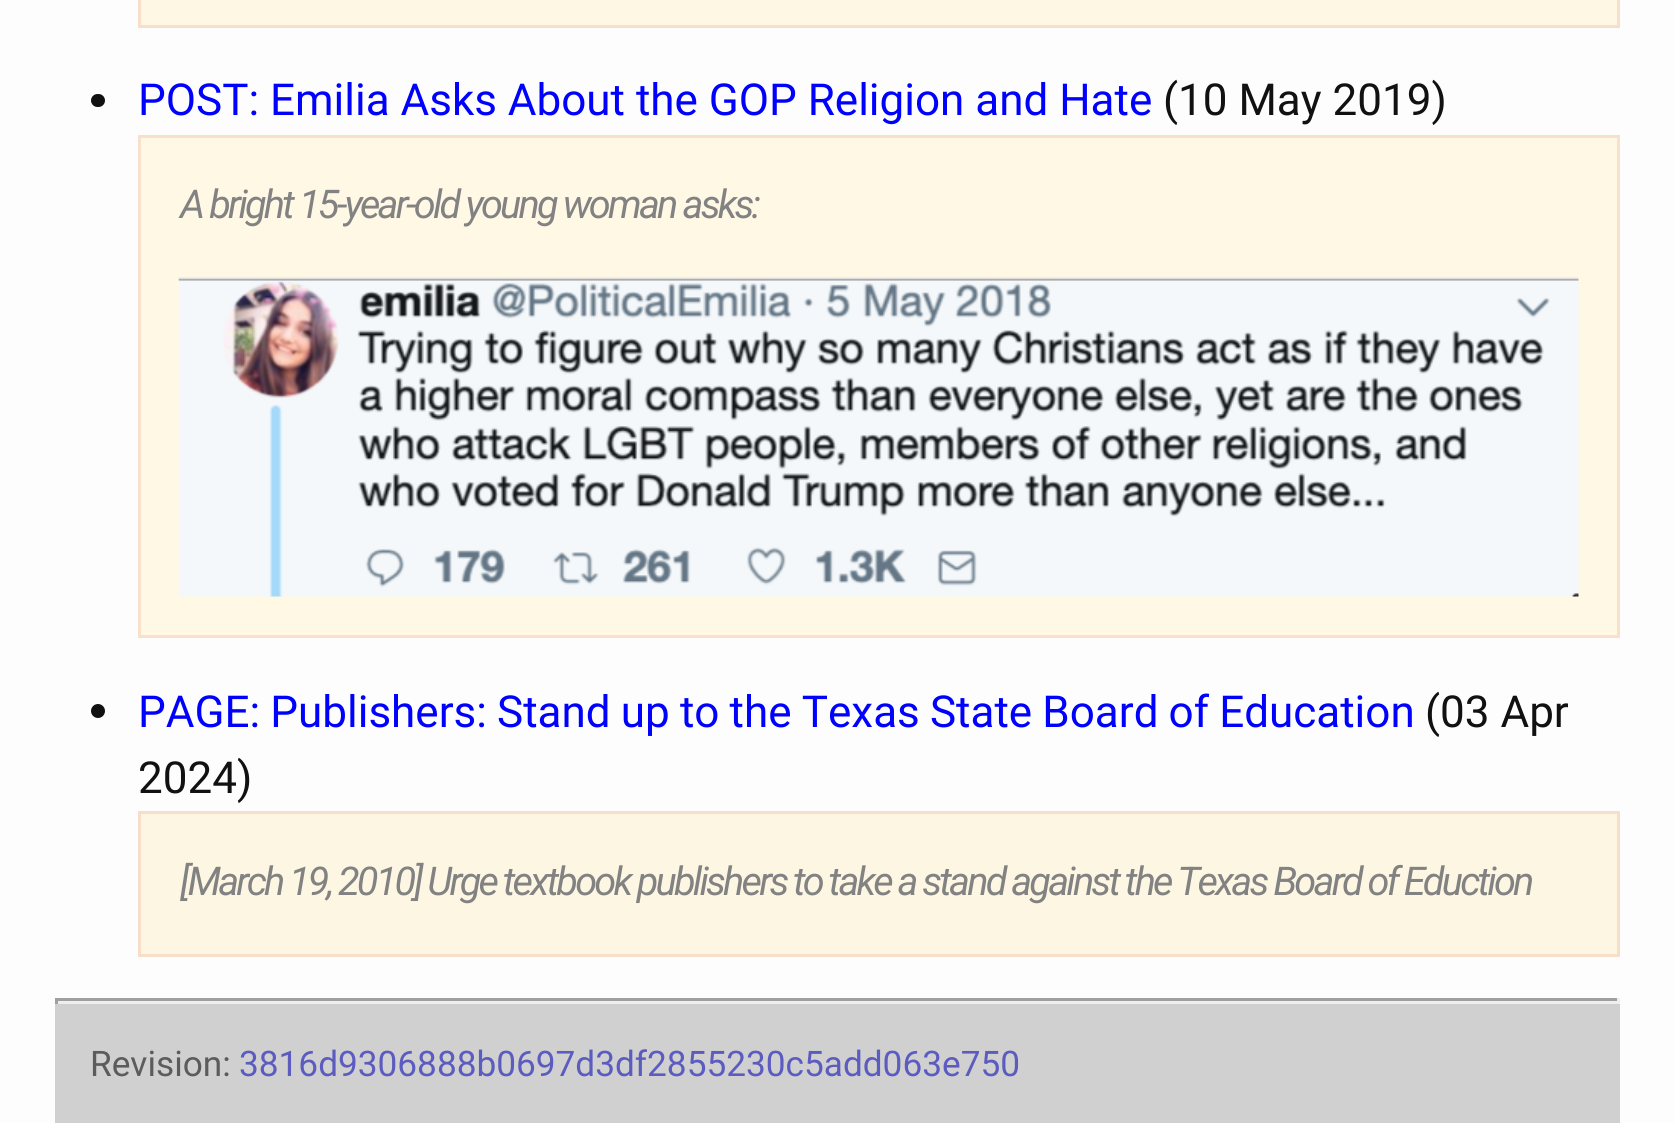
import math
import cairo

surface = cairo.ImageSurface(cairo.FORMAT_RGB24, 1674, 1123)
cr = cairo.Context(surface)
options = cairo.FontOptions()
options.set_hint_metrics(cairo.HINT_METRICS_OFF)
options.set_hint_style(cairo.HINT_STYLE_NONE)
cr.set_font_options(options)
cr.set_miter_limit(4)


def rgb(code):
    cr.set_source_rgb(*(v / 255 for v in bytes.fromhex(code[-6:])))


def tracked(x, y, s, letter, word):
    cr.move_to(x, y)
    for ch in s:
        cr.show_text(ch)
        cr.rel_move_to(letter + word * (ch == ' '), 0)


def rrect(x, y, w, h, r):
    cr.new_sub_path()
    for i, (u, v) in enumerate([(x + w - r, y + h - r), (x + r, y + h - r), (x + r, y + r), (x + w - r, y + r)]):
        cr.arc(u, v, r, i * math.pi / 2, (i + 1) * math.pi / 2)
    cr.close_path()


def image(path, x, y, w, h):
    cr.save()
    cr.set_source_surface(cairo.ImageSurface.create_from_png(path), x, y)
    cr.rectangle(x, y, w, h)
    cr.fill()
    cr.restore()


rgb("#fdfdfd")
cr.paint()
rgb("#fdf7e4")
cr.rectangle(139.5, -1.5, 1479, 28)
cr.fill_preserve()
rgb("#f7dfca")
cr.set_line_width(3)
cr.stroke()
rgb("#111111")
rrect(91, 94, 14, 13, 6.5)
cr.fill()
rgb("#fff8e5")
cr.rectangle(139.5, 136.5, 1479, 500)
cr.fill_preserve()
rgb("#f8e0ca")
cr.stroke()
image("img/1.png", 178, 277, 1401, 320)
rgb("#111111")
cr.arc(98, 711, 7, 0, 2 * math.pi)
cr.fill()
rgb("#fdf6e3")
cr.rectangle(139.5, 812.5, 1479, 143)
cr.fill_preserve()
rgb("#f7dec9")
cr.stroke()
for x, y, w, h, color in [
    (55, 998, 1565, 3, "#9f9f9f"),
    (1617, 998, 3, 6, "#eeeeee"),
    (55, 1001, 1565, 3, "#eeeeee"),
    (55, 998, 3, 6, "#9f9f9f"),
    (55, 1004, 1565, 119, "#d0d0d0"),
]:
    rgb(color)
    cr.rectangle(x, y, w, h)
    cr.fill()
cr.select_font_face("Roboto")
cr.set_font_size(44)
rgb("#0000ff")
cr.move_to(138, 115)
cr.show_text("POST: Emilia Asks About the GOP Religion and Hate")
rgb("#111111")
cr.move_to(1163, 115)
cr.show_text("(10 May 2019)")
cr.select_font_face("Roboto", cairo.FONT_SLANT_ITALIC)
cr.set_font_size(39.6)
rgb("#828282")
tracked(180, 218, "A bright 15-year-old young woman asks:", -2.75, 0)
cr.select_font_face("Roboto")
cr.set_font_size(44)
rgb("#0000ff")
tracked(138, 727, "PAGE: Publishers: Stand up to the Texas State Board of Education", 0, -0.75)
rgb("#111111")
cr.move_to(1425, 727)
cr.show_text("(03 Apr")
cr.move_to(138, 793)
cr.show_text("2024)")
cr.select_font_face("Roboto", cairo.FONT_SLANT_ITALIC)
cr.set_font_size(39.6)
rgb("#828282")
tracked(180, 895, "[March 19, 2010] Urge textbook publishers to take a stand against the Texas Board of Eduction", -2.75, -0.4)
cr.select_font_face("Roboto")
cr.set_font_size(35.2)
rgb("#5c5c5c")
cr.move_to(90, 1076)
cr.show_text("Revision:")
rgb("#5c5cc0")
cr.move_to(239, 1076)
cr.show_text("3816d9306888b0697d3df2855230c5add063e750")
surface.write_to_png("page.png")
